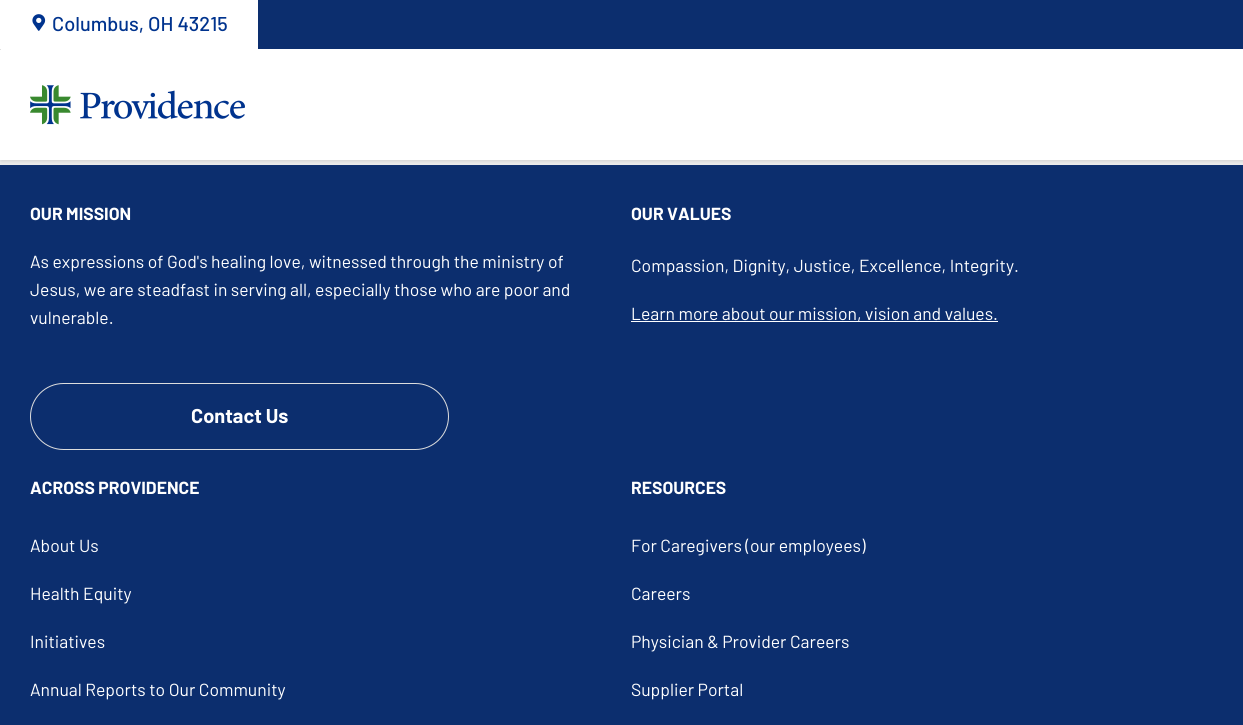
import math
import cairo

surface = cairo.ImageSurface(cairo.FORMAT_RGB24, 1243, 725)
cr = cairo.Context(surface)
options = cairo.FontOptions()
options.set_hint_metrics(cairo.HINT_METRICS_OFF)
options.set_hint_style(cairo.HINT_STYLE_NONE)
cr.set_font_options(options)
cr.set_miter_limit(4)


def rgb(code):
    cr.set_source_rgb(*(v / 255 for v in bytes.fromhex(code[-6:])))


def rrect(x, y, w, h, r):
    cr.new_sub_path()
    for i, (u, v) in enumerate([(x + w - r, y + h - r), (x + r, y + h - r), (x + r, y + r), (x + w - r, y + r)]):
        cr.arc(u, v, r, i * math.pi / 2, (i + 1) * math.pi / 2)
    cr.close_path()


def soft_shadow(x, y, w, h, r, blur, alpha):
    cr.push_group_with_content(cairo.CONTENT_ALPHA)
    cr.set_operator(cairo.OPERATOR_SOURCE)
    for i in range(15, -16, -2):
        e = blur * i / 6
        if min(w, h) + 2 * e > 0:
            cr.set_source_rgba(0, 0, 0, alpha * math.erfc((i - 1) / 8.5) / 2)
            rrect(x - e, y - e, w + 2 * e, h + 2 * e, max(0, min(r + e + blur * .6, min(w, h) / 2 + e)))
            cr.fill()
    cr.mask(cr.pop_group())


def image(path, x, y, w, h):
    cr.save()
    cr.set_source_surface(cairo.ImageSurface.create_from_png(path), x, y)
    cr.rectangle(x, y, w, h)
    cr.fill()
    cr.restore()


rgb("#ececec")
cr.paint()
rgb("#0c2e6e")
cr.rectangle(0, 165, 1243, 560)
cr.fill()
rgb("#cecece")
soft_shadow(1, 1, 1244, 160, 0, 2, 1)
for x, y, w, h, color in [
    (1, 49, 1242, 1, "#ffffff"),
    (258, 0, 985, 49, "#0c2e6e"),
    (0, 0, 258, 49, "#ffffff"),
]:
    rgb(color)
    cr.rectangle(x, y, w, h)
    cr.fill()
image("img/1.png", 32, 14, 14, 17)
cr.rectangle(0, 50, 1243, 110)
cr.fill()
image("img/2.png", 30, 85, 215, 40)
cr.rectangle(631, 321, 367, 1)
cr.fill()
rrect(30.5, 383.5, 418, 66, 33)
rgb("#dddddd")
cr.set_line_width(1)
cr.stroke()
cr.select_font_face("Barlow Medium")
cr.set_font_size(20)
rgb("#00338e")
cr.move_to(52, 31)
cr.show_text("Columbus, OH 43215")
cr.select_font_face("Barlow", cairo.FONT_SLANT_NORMAL, cairo.FONT_WEIGHT_BOLD)
cr.set_font_size(17.5)
rgb("#ffffff")
cr.move_to(30, 220)
cr.show_text("OUR MISSION")
cr.select_font_face("Barlow")
for x, y, s in [
    (30, 268, "As expressions of God's healing love, witnessed through the ministry of"),
    (30, 296, "Jesus, we are steadfast in serving all, especially those who are poor and"),
    (30, 324, "vulnerable."),
]:
    cr.move_to(x, y)
    cr.show_text(s)
cr.select_font_face("Barlow", cairo.FONT_SLANT_NORMAL, cairo.FONT_WEIGHT_BOLD)
cr.move_to(631, 220)
cr.show_text("OUR VALUES")
cr.select_font_face("Barlow")
cr.move_to(631, 272)
cr.show_text("Compassion, Dignity, Justice, Excellence, Integrity.")
cr.move_to(631, 320)
cr.show_text("Learn more about our mission, vision and values.")
cr.select_font_face("Barlow", cairo.FONT_SLANT_NORMAL, cairo.FONT_WEIGHT_BOLD)
cr.set_font_size(20)
cr.move_to(191, 423)
cr.show_text("Contact Us")
cr.set_font_size(17.5)
cr.move_to(30, 494)
cr.show_text("ACROSS PROVIDENCE")
cr.select_font_face("Barlow")
for x, y, s in [
    (30, 552, "About Us"),
    (30, 600, "Health Equity"),
    (30, 648, "Initiatives"),
    (30, 696, "Annual Reports to Our Community"),
]:
    cr.move_to(x, y)
    cr.show_text(s)
cr.select_font_face("Barlow", cairo.FONT_SLANT_NORMAL, cairo.FONT_WEIGHT_BOLD)
cr.move_to(631, 494)
cr.show_text("RESOURCES")
cr.select_font_face("Barlow")
for x, y, s in [
    (631, 552, "For Caregivers (our employees)"),
    (631, 600, "Careers"),
    (631, 648, "Physician & Provider Careers"),
    (631, 696, "Supplier Portal"),
]:
    cr.move_to(x, y)
    cr.show_text(s)
surface.write_to_png("page.png")
